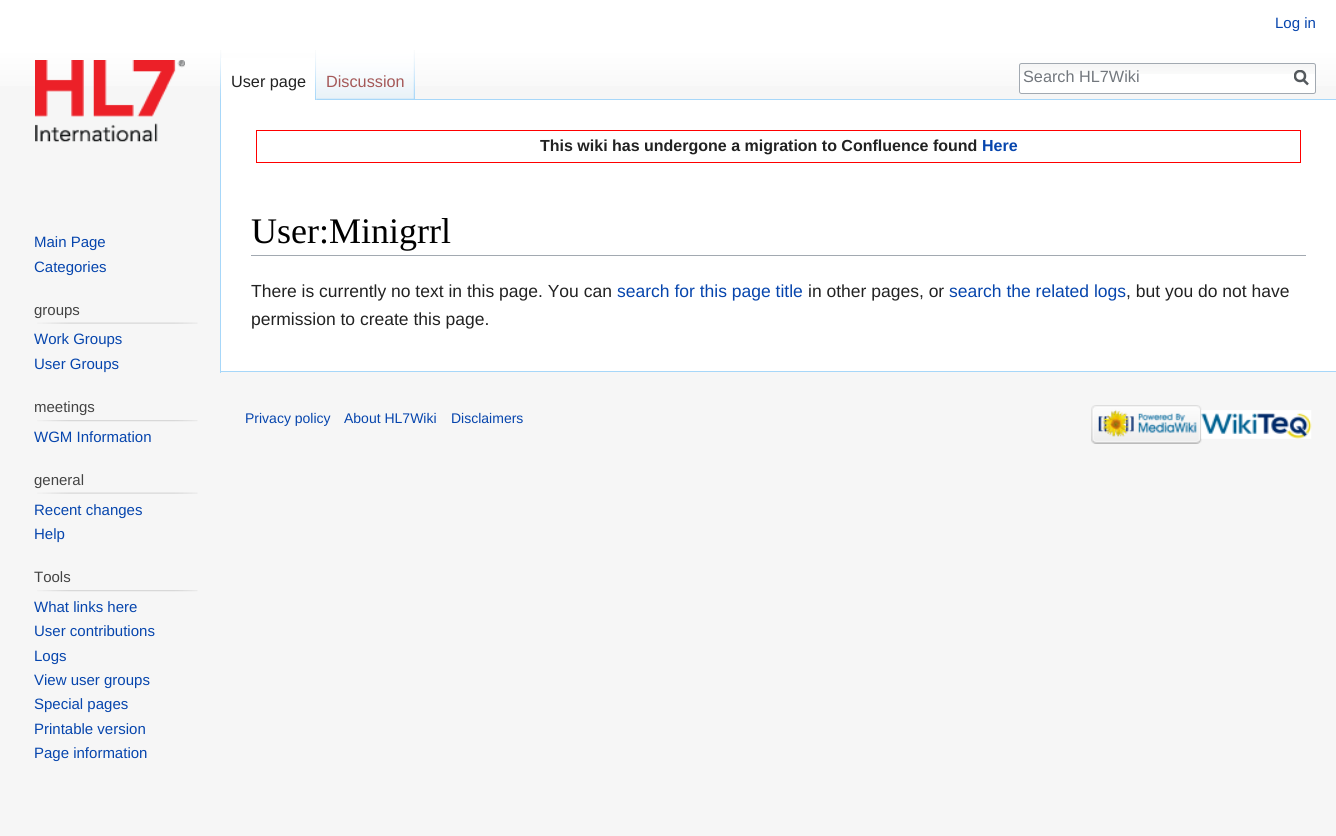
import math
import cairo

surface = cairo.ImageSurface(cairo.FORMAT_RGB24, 1336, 836)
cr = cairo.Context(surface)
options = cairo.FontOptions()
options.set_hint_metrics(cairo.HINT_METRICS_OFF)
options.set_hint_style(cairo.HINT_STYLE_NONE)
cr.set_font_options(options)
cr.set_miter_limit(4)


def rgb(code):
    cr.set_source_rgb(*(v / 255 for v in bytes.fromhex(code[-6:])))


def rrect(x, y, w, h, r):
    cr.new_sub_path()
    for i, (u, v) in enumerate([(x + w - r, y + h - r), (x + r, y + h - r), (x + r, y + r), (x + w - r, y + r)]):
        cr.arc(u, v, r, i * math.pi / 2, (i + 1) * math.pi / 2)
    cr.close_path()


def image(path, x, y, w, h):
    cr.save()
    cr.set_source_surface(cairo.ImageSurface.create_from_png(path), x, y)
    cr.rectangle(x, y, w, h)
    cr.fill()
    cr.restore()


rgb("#f6f6f6")
cr.paint()
gradient = cairo.LinearGradient(668, 0, 668, 100)
gradient.add_color_stop_rgba(0.5, 1, 1, 1, 1)
gradient.add_color_stop_rgba(1, 0.965, 0.965, 0.965, 1)
cr.set_source(gradient)
cr.rectangle(0, 0, 1336, 86)
cr.fill()
image("img/1.png", 220, 50, 2, 49)
rgb("#ffffff")
cr.rectangle(221, 58, 96, 42)
cr.fill()
image("img/2.png", 315, 50, 2, 50)
image("img/3.png", 316, 50, 99, 50)
image("img/4.png", 413, 50, 2, 49)
rrect(1019, 63, 297, 31, 2.5)
cr.fill()
image("img/5.png", 1019, 64, 297, 10)
rrect(1019.5, 63.5, 296, 30, 2)
rgb("#a2a9b1")
cr.set_line_width(1)
cr.stroke()
cr.new_path()
cr.move_to(1308, 84.5)
cr.line_to(1303, 79.5)
rgb("#54595d")
cr.set_line_width(2.5)
cr.stroke()
cr.save()
cr.rectangle(1294, 70, 15, 16)
cr.clip()
cr.arc(1300, 76, 5, 0, 2 * math.pi)
cr.stroke()
cr.restore()
image("img/6.png", 35, 60, 150, 82)
image("img/7.png", 37, 322, 161, 2)
image("img/8.png", 37, 420, 161, 2)
image("img/7.png", 37, 492, 161, 2)
image("img/8.png", 37, 590, 161, 2)
for x, y, w, h, color in [
    (221, 100, 1115, 271, "#ffffff"),
    (415, 99, 921, 1, "#a7d7f9"),
    (220, 371, 1116, 1, "#a7d7f9"),
    (220, 99, 1, 274, "#a7d7f9"),
]:
    rgb(color)
    cr.rectangle(x, y, w, h)
    cr.fill()
cr.rectangle(256.5, 130.5, 1044, 32)
rgb("#ff0000")
cr.set_line_width(1)
cr.stroke()
rgb("#a2a9b1")
cr.rectangle(251, 255, 1055, 1)
cr.fill()
image("img/9.png", 1091, 405, 111, 39)
image("img/10.png", 1201, 410, 111, 29)
cr.select_font_face("Liberation Sans")
cr.set_font_size(15)
rgb("#0645ad")
cr.move_to(1275, 28)
cr.show_text("Log in")
cr.set_font_size(16.25)
rgb("#222222")
cr.move_to(231, 87)
cr.show_text("User page")
rgb("#a55858")
cr.move_to(326, 87)
cr.show_text("Discussion")
rgb("#72777d")
cr.move_to(1023, 82)
cr.show_text("Search HL7Wiki")
cr.set_font_size(15)
rgb("#0645ad")
cr.move_to(34, 247)
cr.show_text("Main Page")
cr.move_to(34, 272)
cr.show_text("Categories")
rgb("#444444")
cr.move_to(34, 315)
cr.show_text("groups")
rgb("#0645ad")
cr.move_to(34, 344)
cr.show_text("Work Groups")
cr.move_to(34, 369)
cr.show_text("User Groups")
rgb("#444444")
cr.move_to(34, 412)
cr.show_text("meetings")
rgb("#0645ad")
cr.move_to(34, 442)
cr.show_text("WGM Information")
rgb("#444444")
cr.move_to(34, 485)
cr.show_text("general")
rgb("#0645ad")
cr.move_to(34, 515)
cr.show_text("Recent changes")
cr.move_to(34, 539)
cr.show_text("Help")
rgb("#444444")
cr.move_to(34, 582)
cr.show_text("Tools")
rgb("#0645ad")
for x, y, s in [
    (34, 612, "What links here"),
    (34, 636, "User contributions"),
    (34, 661, "Logs"),
    (34, 685, "View user groups"),
    (34, 709, "Special pages"),
    (34, 734, "Printable version"),
    (34, 758, "Page information"),
]:
    cr.move_to(x, y)
    cr.show_text(s)
cr.select_font_face("Liberation Sans", cairo.FONT_SLANT_NORMAL, cairo.FONT_WEIGHT_BOLD)
cr.set_font_size(16)
rgb("#222222")
cr.move_to(540, 151)
cr.show_text("This wiki has undergone a migration to Confluence found")
rgb("#0645ad")
cr.move_to(982, 151)
cr.show_text("Here")
cr.select_font_face("Liberation Serif")
cr.set_font_size(36)
rgb("#000000")
cr.move_to(251, 243)
cr.show_text("User:Minigrrl")
cr.select_font_face("Liberation Sans")
cr.set_font_size(17.5)
rgb("#222222")
cr.move_to(251, 297)
cr.show_text("There is currently no text in this page. You can")
rgb("#0645ad")
cr.move_to(617, 297)
cr.show_text("search for this page title")
rgb("#222222")
cr.move_to(808, 297)
cr.show_text("in other pages, or")
rgb("#0645ad")
cr.move_to(949, 297)
cr.show_text("search the related logs")
rgb("#222222")
cr.move_to(1126, 297)
cr.show_text(", but you do not have")
cr.move_to(251, 325)
cr.show_text("permission to create this page.")
cr.set_font_size(14)
rgb("#0645ad")
for x, y, s in [
    (245, 423, "Privacy policy"),
    (344, 423, "About HL7Wiki"),
    (451, 423, "Disclaimers"),
]:
    cr.move_to(x, y)
    cr.show_text(s)
surface.write_to_png("page.png")
